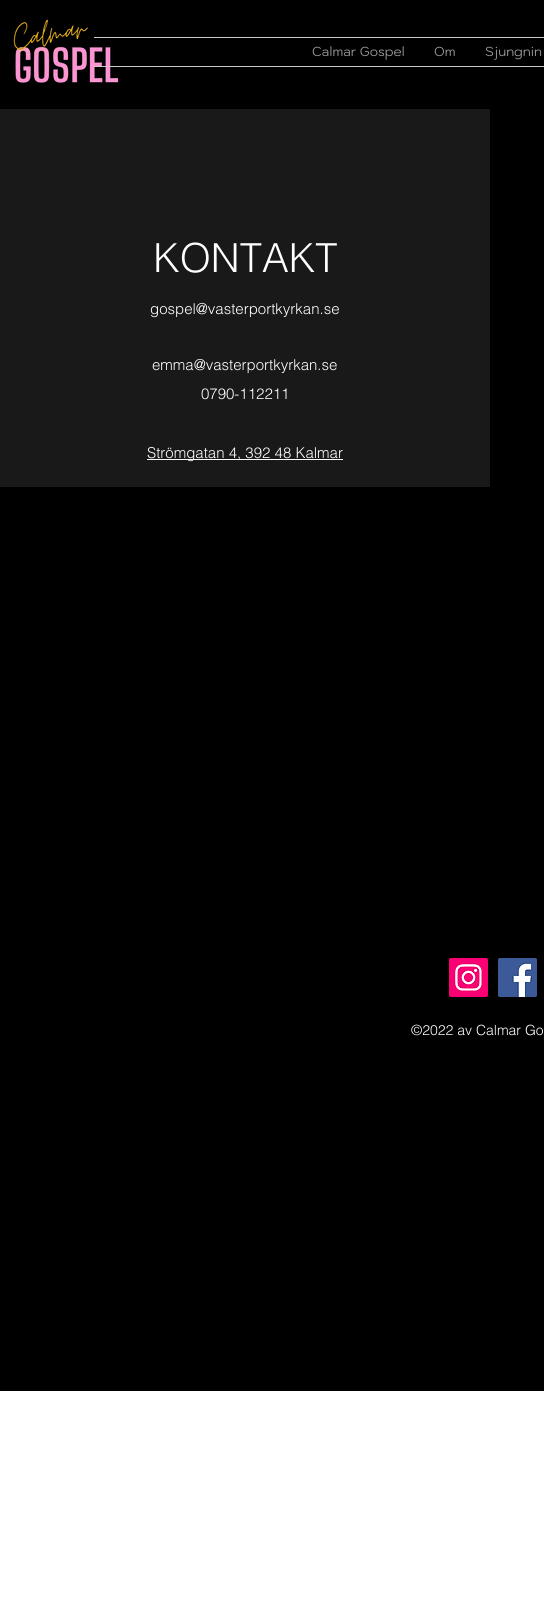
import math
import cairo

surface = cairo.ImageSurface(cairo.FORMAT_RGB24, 544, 1606)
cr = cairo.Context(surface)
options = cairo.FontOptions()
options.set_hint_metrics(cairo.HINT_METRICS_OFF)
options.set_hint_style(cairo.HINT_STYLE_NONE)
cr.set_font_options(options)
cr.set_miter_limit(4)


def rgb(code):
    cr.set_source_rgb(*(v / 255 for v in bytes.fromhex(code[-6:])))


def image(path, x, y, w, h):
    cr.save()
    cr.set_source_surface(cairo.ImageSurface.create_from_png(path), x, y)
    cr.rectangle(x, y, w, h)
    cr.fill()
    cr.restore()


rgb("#ffffff")
cr.paint()
rgb("#000000")
cr.rectangle(0, 0, 544, 1391)
cr.fill()
image("img/1.png", 13, 19, 106, 64)
for x, y, w, h, color in [
    (94, 37, 450, 1, "#cacaca"),
    (94, 66, 450, 1, "#cacaca"),
    (0, 109, 490, 378, "#191919"),
    (147, 459, 196, 1, "#ffffff"),
]:
    rgb(color)
    cr.rectangle(x, y, w, h)
    cr.fill()
image("img/2.png", 449, 958, 39, 39)
image("img/3.png", 498, 958, 39, 39)
cr.select_font_face("Kodchasan")
cr.set_font_size(13)
rgb("#9e9e9e")
for x, y, s in [
    (312, 56, "Calmar Gospel"),
    (434, 56, "Om"),
    (485, 56, "Sjungnin"),
]:
    cr.move_to(x, y)
    cr.show_text(s)
cr.select_font_face("helvetica Light")
cr.set_font_size(40)
rgb("#ffffff")
cr.move_to(153, 272)
cr.show_text("KONTAKT")
cr.set_font_size(15)
for x, y, s in [
    (150, 314, "gospel@vasterportkyrkan.se"),
    (152, 370, "emma@vasterportkyrkan.se"),
    (201, 399, "0790-112211"),
    (147, 458, "Strömgatan 4, 392 48 Kalmar"),
]:
    cr.move_to(x, y)
    cr.show_text(s)
cr.set_font_size(14)
cr.move_to(411, 1035)
cr.show_text("©2022 av Calmar Go")
surface.write_to_png("page.png")
